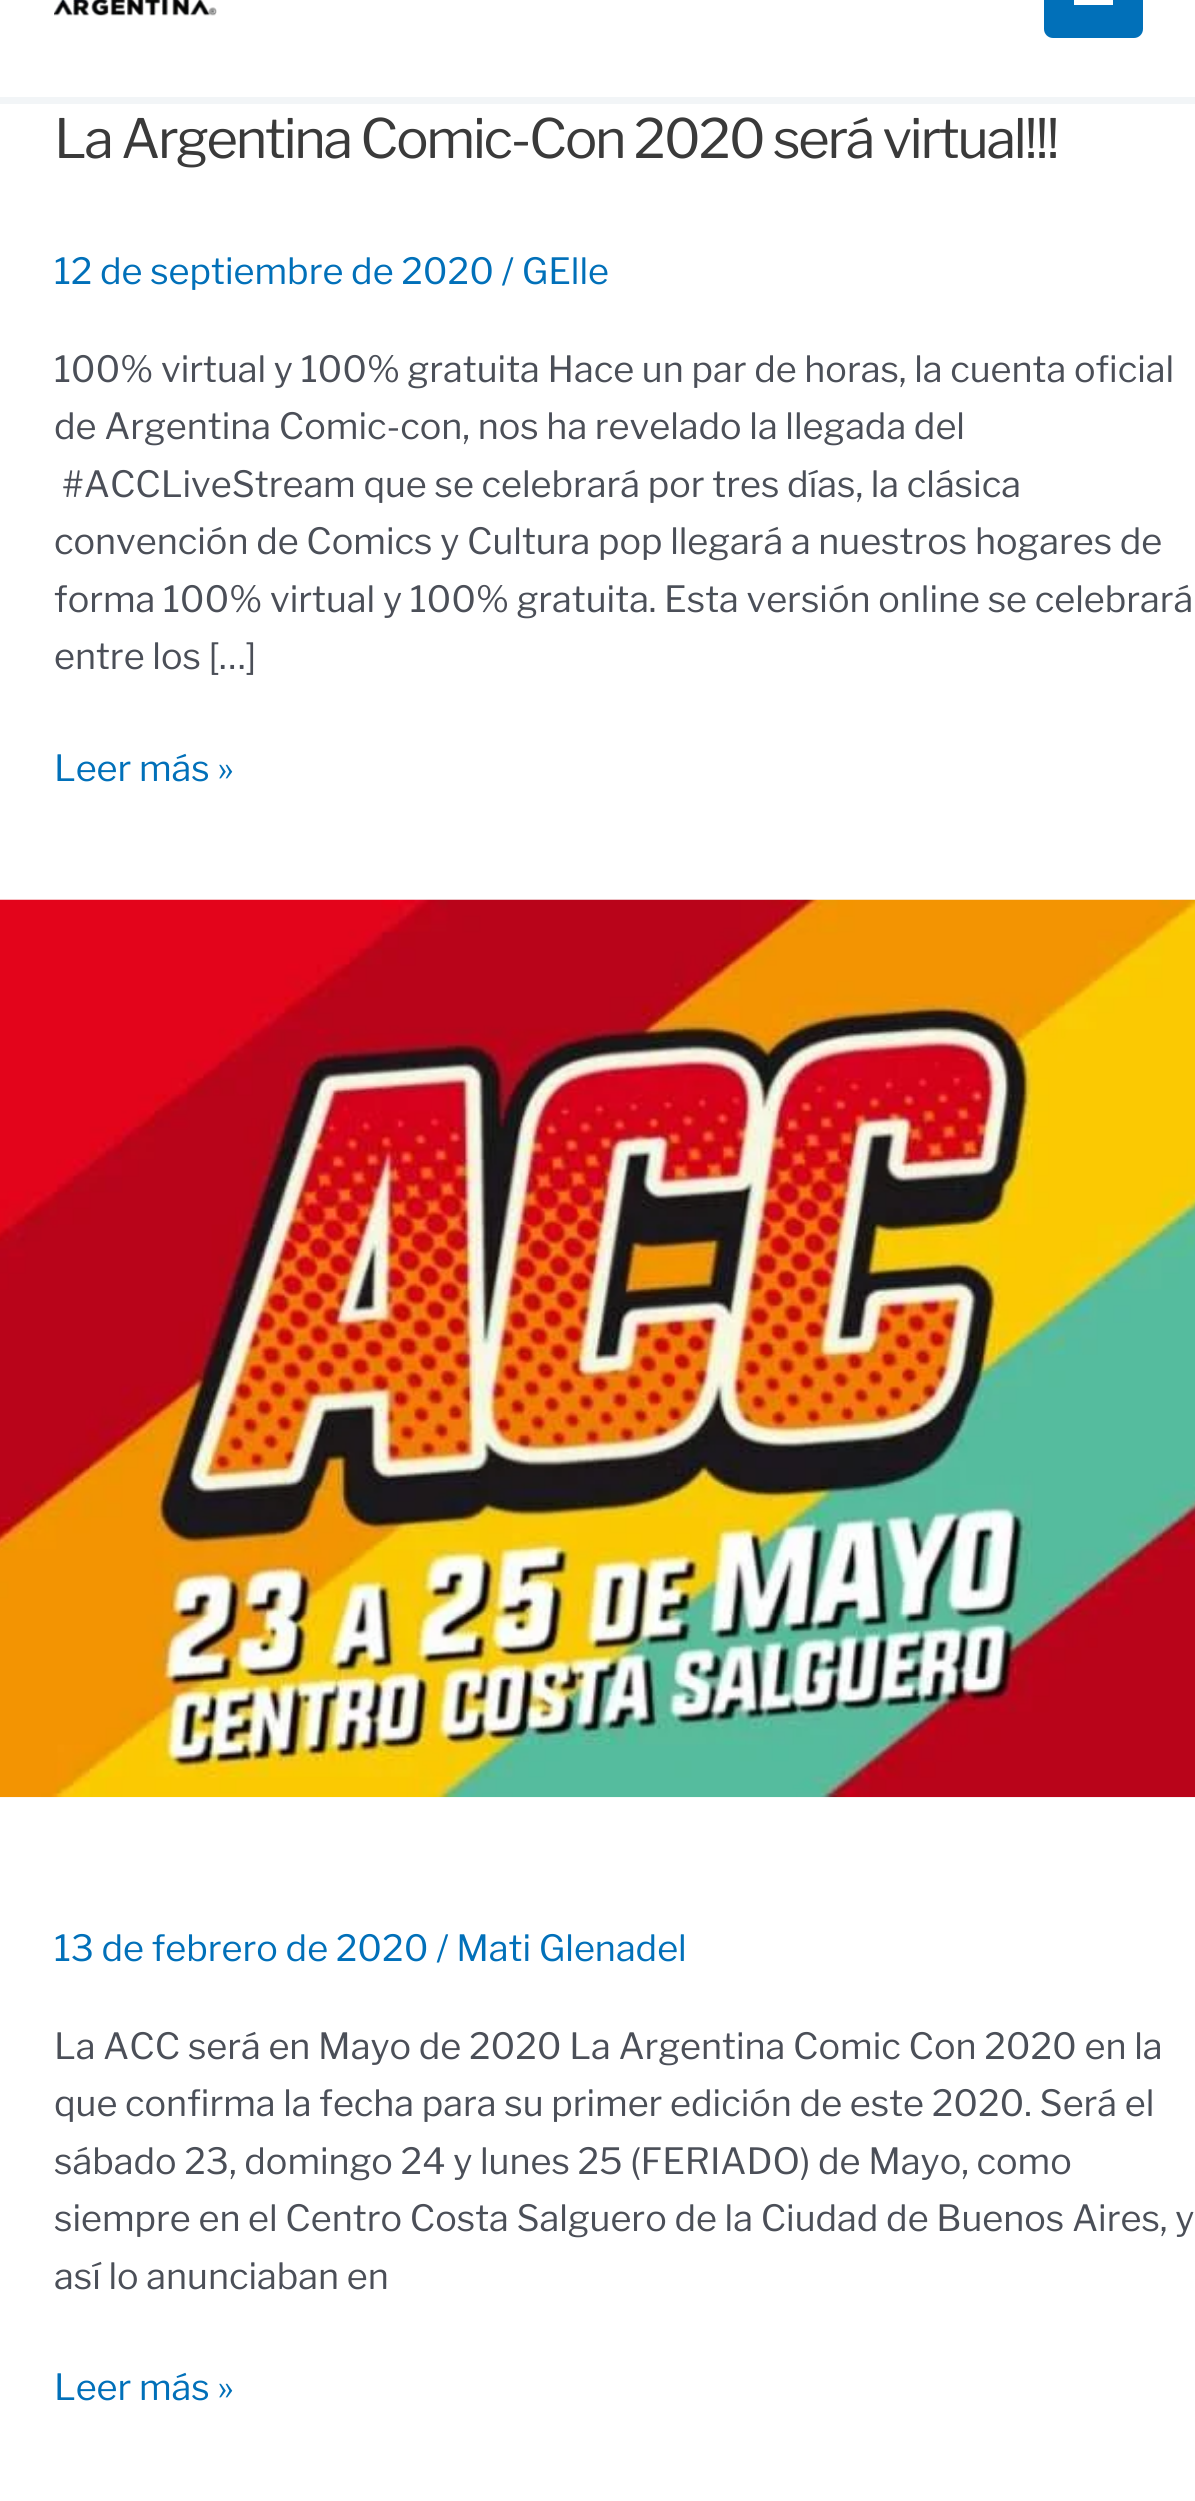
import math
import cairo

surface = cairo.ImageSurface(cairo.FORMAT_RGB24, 1195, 2501)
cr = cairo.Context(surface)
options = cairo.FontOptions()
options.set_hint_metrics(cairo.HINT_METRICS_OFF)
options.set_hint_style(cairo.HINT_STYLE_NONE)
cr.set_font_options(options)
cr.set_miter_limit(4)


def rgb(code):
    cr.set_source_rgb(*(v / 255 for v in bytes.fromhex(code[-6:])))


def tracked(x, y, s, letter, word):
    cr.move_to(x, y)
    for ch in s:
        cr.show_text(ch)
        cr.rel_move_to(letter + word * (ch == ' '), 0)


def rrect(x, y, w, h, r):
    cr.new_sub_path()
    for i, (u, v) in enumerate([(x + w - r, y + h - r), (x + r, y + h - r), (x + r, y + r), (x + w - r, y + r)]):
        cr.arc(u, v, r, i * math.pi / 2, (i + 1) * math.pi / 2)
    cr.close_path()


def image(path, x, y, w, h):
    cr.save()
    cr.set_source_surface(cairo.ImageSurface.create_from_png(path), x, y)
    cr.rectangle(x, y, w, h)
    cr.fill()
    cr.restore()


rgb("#ffffff")
cr.paint()
rgb("#f2f5f7")
cr.rectangle(0, 97, 1195, 7)
cr.fill()
image("img/1.png", 54, 0, 163, 16)
rgb("#0170b9")
rrect(1044, -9, 99, 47, 9)
cr.fill()
rgb("#ffffff")
cr.rectangle(1074, 0, 39, 5)
cr.fill()
image("img/2.png", 0, 899, 1195, 899)
cr.select_font_face("Libre Franklin")
cr.set_font_size(54)
rgb("#3a3a3a")
tracked(54, 158, "La Argentina Comic-Con 2020 será virtual!!!", -2.25, 0)
cr.set_font_size(36)
rgb("#0170b9")
cr.move_to(54, 284)
cr.show_text("12 de septiembre de 2020 / GElle")
rgb("#4b4f58")
for x, y, s in [
    (54, 382, "100% virtual y 100% gratuita Hace un par de horas, la cuenta oficial"),
    (54, 439, "de Argentina Comic-con, nos ha revelado la llegada del"),
    (62, 497, "#ACCLiveStream que se celebrará por tres días, la clásica"),
    (54, 554, "convención de Comics y Cultura pop llegará a nuestros hogares de"),
    (54, 612, "forma 100% virtual y 100% gratuita. Esta versión online se celebrará"),
    (54, 669, "entre los […]"),
]:
    cr.move_to(x, y)
    cr.show_text(s)
rgb("#0170b9")
cr.move_to(54, 781)
cr.show_text("Leer más »")
cr.move_to(54, 1961)
cr.show_text("13 de febrero de 2020 / Mati Glenadel")
rgb("#4b4f58")
for x, y, s in [
    (54, 2059, "La ACC será en Mayo de 2020 La Argentina Comic Con 2020 en la"),
    (54, 2116, "que confirma la fecha para su primer edición de este 2020. Será el"),
    (54, 2174, "sábado 23, domingo 24 y lunes 25 (FERIADO) de Mayo, como"),
    (54, 2231, "siempre en el Centro Costa Salguero de la Ciudad de Buenos Aires, y"),
    (54, 2289, "así lo anunciaban en"),
]:
    cr.move_to(x, y)
    cr.show_text(s)
rgb("#0170b9")
cr.move_to(54, 2400)
cr.show_text("Leer más »")
surface.write_to_png("page.png")
